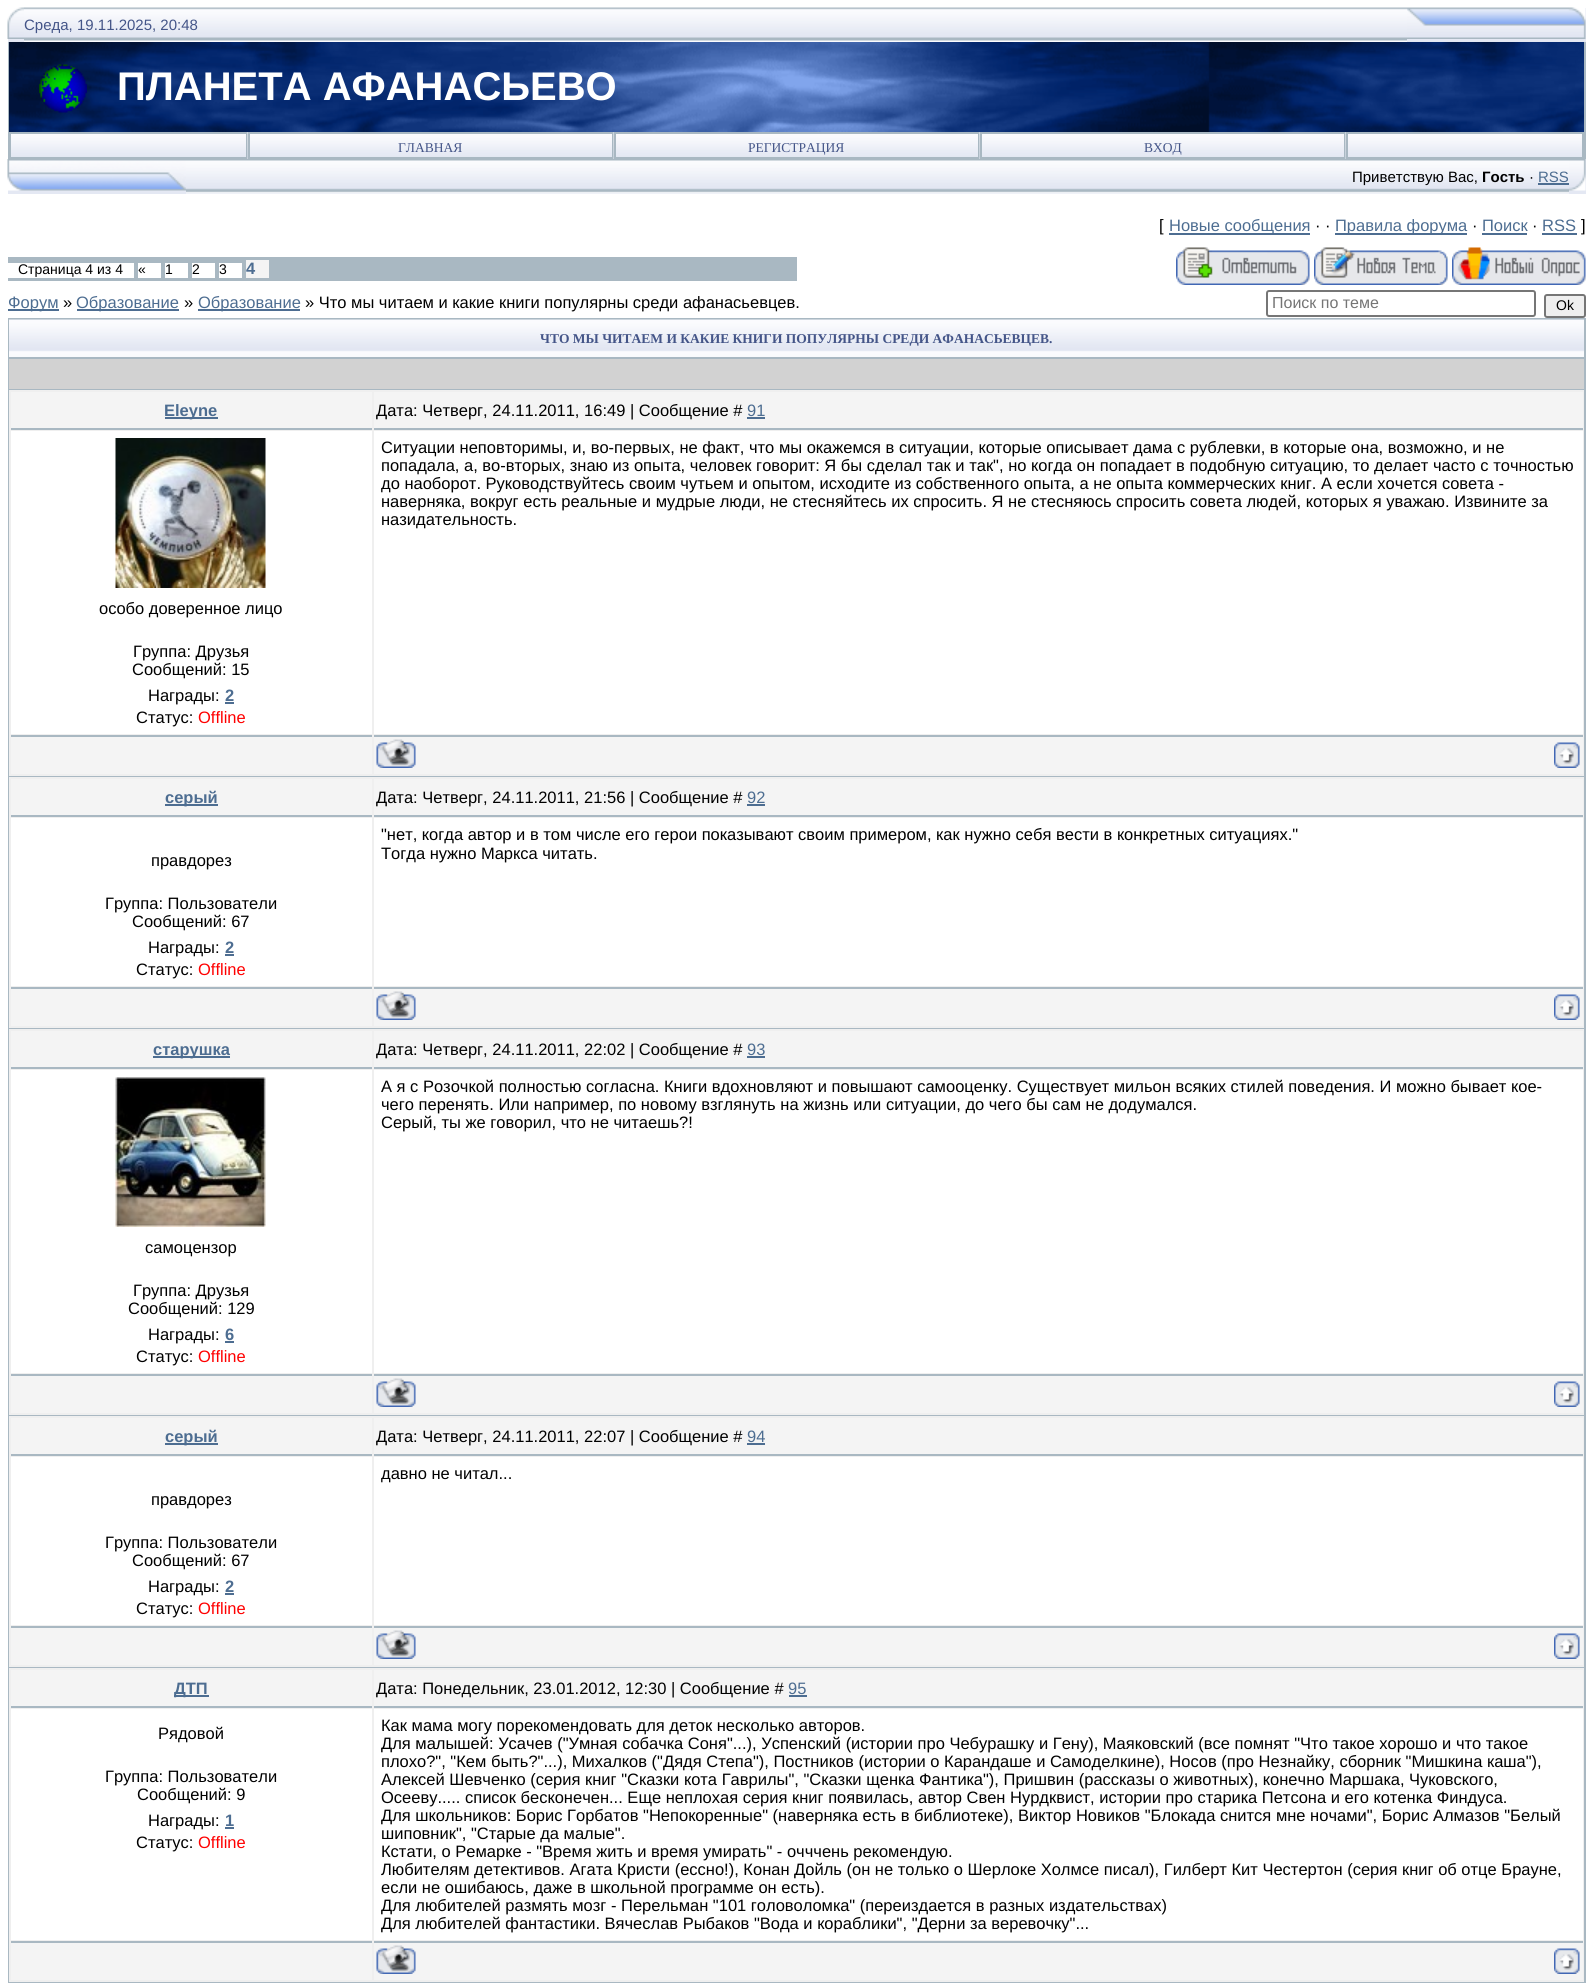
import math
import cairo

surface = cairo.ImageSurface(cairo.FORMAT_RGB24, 1592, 1983)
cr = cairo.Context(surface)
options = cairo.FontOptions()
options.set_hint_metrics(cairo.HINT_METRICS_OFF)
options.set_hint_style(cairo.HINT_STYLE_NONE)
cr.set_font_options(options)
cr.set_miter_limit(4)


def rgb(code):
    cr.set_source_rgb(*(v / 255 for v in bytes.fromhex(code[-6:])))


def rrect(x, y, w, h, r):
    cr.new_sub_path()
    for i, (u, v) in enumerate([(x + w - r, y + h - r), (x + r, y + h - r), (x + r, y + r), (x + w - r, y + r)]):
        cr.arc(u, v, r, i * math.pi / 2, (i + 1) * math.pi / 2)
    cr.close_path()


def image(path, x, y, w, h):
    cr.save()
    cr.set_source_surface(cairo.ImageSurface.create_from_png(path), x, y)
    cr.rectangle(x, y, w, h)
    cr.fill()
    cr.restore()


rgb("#ffffff")
cr.paint()
rgb("#e4e8f3")
cr.rectangle(8, 39, 16, 3)
cr.fill()
image("img/1.png", 7, 7, 17, 32)
image("img/2.png", 24, 7, 1383, 35)
cr.rectangle(1407, 8, 179, 34)
cr.fill()
image("img/3.png", 1407, 7, 179, 32)
rgb("#a9b8c2")
cr.rectangle(1584, 42, 2, 117)
cr.fill()
cr.rectangle(8, 42, 1, 117)
cr.fill()
image("img/4.png", 9, 42, 1575, 90)
image("img/5.png", 39, 64, 48, 49)
image("img/6.png", 11, 134, 235, 23)
cr.rectangle(10, 133, 237, 25)
cr.stroke()
image("img/7.png", 247, 132, 365, 27)
cr.rectangle(249, 133, 364, 25)
cr.stroke()
image("img/8.png", 613, 132, 365, 27)
cr.rectangle(615, 133, 364, 25)
cr.stroke()
image("img/9.png", 979, 132, 365, 27)
cr.rectangle(981, 133, 364, 25)
cr.stroke()
image("img/10.png", 1345, 132, 237, 27)
cr.rectangle(1347, 133, 236, 25)
cr.stroke()
rgb("#e4e8f3")
cr.rectangle(8, 190, 178, 4)
cr.fill()
image("img/11.png", 7, 159, 179, 32)
cr.rectangle(186, 193, 1383, 1)
cr.fill()
image("img/12.png", 186, 159, 1383, 35)
rgb("#4d6d91")
cr.rectangle(1538, 183, 31, 2)
cr.fill()
rgb("#e4e8f3")
cr.rectangle(1569, 159, 17, 35)
cr.fill()
image("img/13.png", 1569, 159, 17, 32)
for x, y, w, h, color in [
    (1169, 233, 141, 2, "#4d6d91"),
    (1335, 233, 132, 2, "#4d6d91"),
    (1482, 233, 45, 2, "#4d6d91"),
    (1542, 233, 35, 2, "#4d6d91"),
    (8, 257, 789, 24, "#a9b8c2"),
    (8, 263, 126, 15, "#ffffff"),
    (138, 263, 23, 15, "#ffffff"),
    (165, 263, 23, 15, "#ffffff"),
    (192, 263, 23, 15, "#ffffff"),
    (219, 263, 23, 15, "#ffffff"),
    (246, 260, 23, 18, "#f4f4f4"),
]:
    rgb(color)
    cr.rectangle(x, y, w, h)
    cr.fill()
image("img/14.png", 1176, 247, 134, 38)
image("img/15.png", 1314, 247, 134, 38)
image("img/16.png", 1452, 247, 134, 38)
for x, y, w, h, color in [
    (8, 309, 51, 2, "#4d6d91"),
    (77, 309, 102, 2, "#4d6d91"),
    (198, 309, 102, 2, "#4d6d91"),
]:
    rgb(color)
    cr.rectangle(x, y, w, h)
    cr.fill()
rrect(1267, 291, 268, 25, 2)
rgb("#767676")
cr.stroke()
rgb("#efefef")
rrect(1545, 295, 40, 22, 2)
cr.fill_preserve()
rgb("#767676")
cr.stroke()
rgb("#a9b8c2")
cr.rectangle(8, 318, 1578, 1665)
cr.fill()
image("img/17.png", 9, 319, 1575, 38)
for x, y, w, h, color in [
    (9, 359, 1575, 30, "#d2d2d2"),
    (9, 390, 1575, 386, "#efefef"),
    (11, 392, 361, 36, "#f4f4f4"),
    (11, 428, 361, 2, "#a9b8c2"),
    (165, 417, 53, 2, "#4d6d91"),
    (374, 392, 1209, 36, "#f4f4f4"),
    (374, 428, 1209, 2, "#a9b8c2"),
    (747, 417, 18, 2, "#4d6d91"),
    (374, 431, 1209, 303, "#ffffff"),
    (11, 431, 361, 303, "#ffffff"),
]:
    rgb(color)
    cr.rectangle(x, y, w, h)
    cr.fill()
image("img/18.png", 115, 438, 151, 150)
for x, y, w, h, color in [
    (225, 702, 9, 2, "#4d6d91"),
    (11, 737, 361, 37, "#f4f4f4"),
    (11, 735, 361, 2, "#a9b8c2"),
    (374, 737, 1209, 37, "#f4f4f4"),
    (374, 735, 1209, 2, "#a9b8c2"),
]:
    rgb(color)
    cr.rectangle(x, y, w, h)
    cr.fill()
image("img/19.png", 376, 739, 40, 29)
image("img/20.png", 1554, 742, 26, 26)
for x, y, w, h, color in [
    (9, 777, 1575, 251, "#efefef"),
    (11, 779, 361, 36, "#f4f4f4"),
    (11, 815, 361, 2, "#a9b8c2"),
    (165, 804, 53, 2, "#4d6d91"),
    (374, 779, 1209, 36, "#f4f4f4"),
    (374, 815, 1209, 2, "#a9b8c2"),
    (747, 804, 18, 2, "#4d6d91"),
    (374, 818, 1209, 168, "#ffffff"),
    (11, 818, 361, 168, "#ffffff"),
    (225, 954, 9, 2, "#4d6d91"),
    (11, 989, 361, 37, "#f4f4f4"),
    (11, 987, 361, 2, "#a9b8c2"),
    (374, 989, 1209, 37, "#f4f4f4"),
    (374, 987, 1209, 2, "#a9b8c2"),
]:
    rgb(color)
    cr.rectangle(x, y, w, h)
    cr.fill()
image("img/19.png", 376, 991, 40, 29)
image("img/20.png", 1554, 994, 26, 26)
for x, y, w, h, color in [
    (9, 1029, 1575, 386, "#efefef"),
    (11, 1031, 361, 36, "#f4f4f4"),
    (11, 1067, 361, 2, "#a9b8c2"),
    (153, 1056, 77, 2, "#4d6d91"),
    (374, 1031, 1209, 36, "#f4f4f4"),
    (374, 1067, 1209, 2, "#a9b8c2"),
    (747, 1056, 18, 2, "#4d6d91"),
    (374, 1070, 1209, 303, "#ffffff"),
    (11, 1070, 361, 303, "#ffffff"),
]:
    rgb(color)
    cr.rectangle(x, y, w, h)
    cr.fill()
image("img/21.png", 115, 1077, 151, 150)
for x, y, w, h, color in [
    (225, 1341, 9, 2, "#4d6d91"),
    (11, 1376, 361, 37, "#f4f4f4"),
    (11, 1374, 361, 2, "#a9b8c2"),
    (374, 1376, 1209, 37, "#f4f4f4"),
    (374, 1374, 1209, 2, "#a9b8c2"),
]:
    rgb(color)
    cr.rectangle(x, y, w, h)
    cr.fill()
image("img/19.png", 376, 1378, 40, 29)
image("img/20.png", 1554, 1381, 26, 26)
for x, y, w, h, color in [
    (9, 1416, 1575, 251, "#efefef"),
    (11, 1418, 361, 36, "#f4f4f4"),
    (11, 1454, 361, 2, "#a9b8c2"),
    (165, 1443, 53, 2, "#4d6d91"),
    (374, 1418, 1209, 36, "#f4f4f4"),
    (374, 1454, 1209, 2, "#a9b8c2"),
    (747, 1443, 18, 2, "#4d6d91"),
    (374, 1457, 1209, 168, "#ffffff"),
    (11, 1457, 361, 168, "#ffffff"),
    (225, 1593, 9, 2, "#4d6d91"),
    (11, 1628, 361, 37, "#f4f4f4"),
    (11, 1626, 361, 2, "#a9b8c2"),
    (374, 1628, 1209, 37, "#f4f4f4"),
    (374, 1626, 1209, 2, "#a9b8c2"),
]:
    rgb(color)
    cr.rectangle(x, y, w, h)
    cr.fill()
image("img/19.png", 376, 1630, 40, 29)
image("img/20.png", 1554, 1633, 26, 26)
for x, y, w, h, color in [
    (9, 1668, 1575, 314, "#efefef"),
    (11, 1670, 361, 36, "#f4f4f4"),
    (11, 1706, 361, 2, "#a9b8c2"),
    (174, 1695, 35, 2, "#4d6d91"),
    (374, 1670, 1209, 36, "#f4f4f4"),
    (374, 1706, 1209, 2, "#a9b8c2"),
    (789, 1695, 18, 2, "#4d6d91"),
    (11, 1709, 361, 231, "#ffffff"),
    (225, 1827, 9, 2, "#4d6d91"),
    (374, 1709, 1209, 231, "#ffffff"),
    (11, 1943, 361, 37, "#f4f4f4"),
    (11, 1941, 361, 2, "#a9b8c2"),
    (374, 1943, 1209, 37, "#f4f4f4"),
    (374, 1941, 1209, 2, "#a9b8c2"),
]:
    rgb(color)
    cr.rectangle(x, y, w, h)
    cr.fill()
image("img/19.png", 376, 1945, 40, 29)
image("img/20.png", 1554, 1948, 26, 26)
cr.select_font_face("Liberation Sans")
cr.set_font_size(15)
rgb("#445588")
cr.move_to(24, 30)
cr.show_text("Среда, 19.11.2025, 20:48")
cr.select_font_face("Liberation Sans", cairo.FONT_SLANT_NORMAL, cairo.FONT_WEIGHT_BOLD)
cr.set_font_size(40)
rgb("#ffffff")
cr.move_to(117, 100)
cr.show_text("ПЛАНЕТА АФАНАСЬЕВО")
cr.select_font_face("Liberation Serif")
cr.set_font_size(13.5)
rgb("#445588")
for x, y, s in [
    (398, 152, "ГЛАВНАЯ"),
    (748, 152, "РЕГИСТРАЦИЯ"),
    (1144, 152, "ВХОД"),
]:
    cr.move_to(x, y)
    cr.show_text(s)
cr.select_font_face("Liberation Sans")
cr.set_font_size(15)
rgb("#000000")
cr.move_to(1352, 182)
cr.show_text("Приветствую Вас,")
cr.select_font_face("Liberation Sans", cairo.FONT_SLANT_NORMAL, cairo.FONT_WEIGHT_BOLD)
cr.move_to(1482, 182)
cr.show_text("Гость")
cr.select_font_face("Liberation Sans")
cr.move_to(1529, 182)
cr.show_text("·")
rgb("#4d6d91")
cr.move_to(1538, 182)
cr.show_text("RSS")
cr.set_font_size(16.5)
rgb("#000000")
cr.move_to(1159, 231)
cr.show_text("[")
rgb("#4d6d91")
cr.move_to(1169, 231)
cr.show_text("Новые сообщения")
rgb("#000000")
cr.move_to(1315, 231)
cr.show_text("· ·")
rgb("#4d6d91")
cr.move_to(1335, 231)
cr.show_text("Правила форума")
rgb("#000000")
cr.move_to(1472, 231)
cr.show_text("·")
rgb("#4d6d91")
cr.move_to(1482, 231)
cr.show_text("Поиск")
rgb("#000000")
cr.move_to(1532, 231)
cr.show_text("·")
rgb("#4d6d91")
cr.move_to(1542, 231)
cr.show_text("RSS")
rgb("#000000")
cr.move_to(1581, 231)
cr.show_text("]")
cr.set_font_size(14)
for x, y, s in [
    (18, 274, "Страница 4 из 4"),
    (138, 274, "«"),
    (165, 274, "1"),
    (192, 274, "2"),
    (219, 274, "3"),
]:
    cr.move_to(x, y)
    cr.show_text(s)
cr.select_font_face("Liberation Sans", cairo.FONT_SLANT_NORMAL, cairo.FONT_WEIGHT_BOLD)
cr.set_font_size(16.5)
rgb("#4d6d91")
cr.move_to(246, 274)
cr.show_text("4")
cr.select_font_face("Liberation Sans")
cr.move_to(8, 308)
cr.show_text("Форум")
rgb("#000000")
cr.move_to(63, 308)
cr.show_text("»")
rgb("#4d6d91")
cr.move_to(76, 308)
cr.show_text("Образование")
rgb("#000000")
cr.move_to(184, 308)
cr.show_text("»")
rgb("#4d6d91")
cr.move_to(198, 308)
cr.show_text("Образование")
rgb("#000000")
cr.move_to(305, 308)
cr.show_text("» Что мы читаем и какие книги популярны среди афанасьевцев.")
cr.set_font_size(16)
rgb("#757575")
cr.move_to(1272, 308)
cr.show_text("Поиск по теме")
cr.set_font_size(14)
rgb("#000000")
cr.move_to(1556, 310)
cr.show_text("Ok")
cr.select_font_face("Liberation Serif", cairo.FONT_SLANT_NORMAL, cairo.FONT_WEIGHT_BOLD)
cr.set_font_size(13.5)
rgb("#445588")
cr.move_to(540, 343)
cr.show_text("ЧТО МЫ ЧИТАЕМ И КАКИЕ КНИГИ ПОПУЛЯРНЫ СРЕДИ АФАНАСЬЕВЦЕВ.")
cr.select_font_face("Liberation Sans", cairo.FONT_SLANT_NORMAL, cairo.FONT_WEIGHT_BOLD)
cr.set_font_size(16.5)
rgb("#4d6d91")
cr.move_to(164, 416)
cr.show_text("Eleyne")
cr.select_font_face("Liberation Sans")
rgb("#000000")
cr.move_to(376, 416)
cr.show_text("Дата: Четверг, 24.11.2011, 16:49 | Сообщение #")
rgb("#4d6d91")
cr.move_to(747, 416)
cr.show_text("91")
rgb("#000000")
for x, y, s in [
    (381, 453, "Ситуации неповторимы, и, во-первых, не факт, что мы окажемся в ситуации, которые описывает дама с рублевки, в которые она, возможно, и не"),
    (381, 471, "попадала, а, во-вторых, знаю из опыта, человек говорит: Я бы сделал так и так\", но когда он попадает в подобную ситуацию, то делает часто с точностью"),
    (381, 489, "до наоборот. Руководствуйтесь своим чутьем и опытом, исходите из собственного опыта, а не опыта коммерческих книг. А если хочется совета -"),
    (381, 507, "наверняка, вокруг есть реальные и мудрые люди, не стесняйтесь их спросить. Я не стесняюсь спросить совета людей, которых я уважаю. Извините за"),
    (381, 525, "назидательность."),
    (99, 614, "особо доверенное лицо"),
    (133, 657, "Группа: Друзья"),
    (132, 675, "Сообщений: 15"),
    (148, 701, "Награды:"),
]:
    cr.move_to(x, y)
    cr.show_text(s)
cr.select_font_face("Liberation Sans", cairo.FONT_SLANT_NORMAL, cairo.FONT_WEIGHT_BOLD)
rgb("#4d6d91")
cr.move_to(225, 701)
cr.show_text("2")
cr.select_font_face("Liberation Sans")
rgb("#000000")
cr.move_to(136, 723)
cr.show_text("Статус:")
rgb("#ff0000")
cr.move_to(198, 723)
cr.show_text("Offline")
cr.select_font_face("Liberation Sans", cairo.FONT_SLANT_NORMAL, cairo.FONT_WEIGHT_BOLD)
rgb("#4d6d91")
cr.move_to(165, 803)
cr.show_text("серый")
cr.select_font_face("Liberation Sans")
rgb("#000000")
cr.move_to(376, 803)
cr.show_text("Дата: Четверг, 24.11.2011, 21:56 | Сообщение #")
rgb("#4d6d91")
cr.move_to(747, 803)
cr.show_text("92")
rgb("#000000")
for x, y, s in [
    (381, 840, "\"нет, когда автор и в том числе его герои показывают своим примером, как нужно себя вести в конкретных ситуациях.\""),
    (381, 859, "Тогда нужно Маркса читать."),
    (151, 866, "правдорез"),
    (105, 909, "Группа: Пользователи"),
    (132, 927, "Сообщений: 67"),
    (148, 953, "Награды:"),
]:
    cr.move_to(x, y)
    cr.show_text(s)
cr.select_font_face("Liberation Sans", cairo.FONT_SLANT_NORMAL, cairo.FONT_WEIGHT_BOLD)
rgb("#4d6d91")
cr.move_to(225, 953)
cr.show_text("2")
cr.select_font_face("Liberation Sans")
rgb("#000000")
cr.move_to(136, 975)
cr.show_text("Статус:")
rgb("#ff0000")
cr.move_to(198, 975)
cr.show_text("Offline")
cr.select_font_face("Liberation Sans", cairo.FONT_SLANT_NORMAL, cairo.FONT_WEIGHT_BOLD)
rgb("#4d6d91")
cr.move_to(153, 1055)
cr.show_text("старушка")
cr.select_font_face("Liberation Sans")
rgb("#000000")
cr.move_to(376, 1055)
cr.show_text("Дата: Четверг, 24.11.2011, 22:02 | Сообщение #")
rgb("#4d6d91")
cr.move_to(747, 1055)
cr.show_text("93")
rgb("#000000")
for x, y, s in [
    (381, 1092, "А я с Розочкой полностью согласна. Книги вдохновляют и повышают самооценку. Существует мильон всяких стилей поведения. И можно бывает кое-"),
    (381, 1110, "чего перенять. Или например, по новому взглянуть на жизнь или ситуации, до чего бы сам не додумался."),
    (381, 1128, "Серый, ты же говорил, что не читаешь?!"),
    (145, 1253, "самоцензор"),
    (133, 1296, "Группа: Друзья"),
    (128, 1314, "Сообщений: 129"),
    (148, 1340, "Награды:"),
]:
    cr.move_to(x, y)
    cr.show_text(s)
cr.select_font_face("Liberation Sans", cairo.FONT_SLANT_NORMAL, cairo.FONT_WEIGHT_BOLD)
rgb("#4d6d91")
cr.move_to(225, 1340)
cr.show_text("6")
cr.select_font_face("Liberation Sans")
rgb("#000000")
cr.move_to(136, 1362)
cr.show_text("Статус:")
rgb("#ff0000")
cr.move_to(198, 1362)
cr.show_text("Offline")
cr.select_font_face("Liberation Sans", cairo.FONT_SLANT_NORMAL, cairo.FONT_WEIGHT_BOLD)
rgb("#4d6d91")
cr.move_to(165, 1442)
cr.show_text("серый")
cr.select_font_face("Liberation Sans")
rgb("#000000")
cr.move_to(376, 1442)
cr.show_text("Дата: Четверг, 24.11.2011, 22:07 | Сообщение #")
rgb("#4d6d91")
cr.move_to(747, 1442)
cr.show_text("94")
rgb("#000000")
for x, y, s in [
    (381, 1479, "давно не читал..."),
    (151, 1505, "правдорез"),
    (105, 1548, "Группа: Пользователи"),
    (132, 1566, "Сообщений: 67"),
    (148, 1592, "Награды:"),
]:
    cr.move_to(x, y)
    cr.show_text(s)
cr.select_font_face("Liberation Sans", cairo.FONT_SLANT_NORMAL, cairo.FONT_WEIGHT_BOLD)
rgb("#4d6d91")
cr.move_to(225, 1592)
cr.show_text("2")
cr.select_font_face("Liberation Sans")
rgb("#000000")
cr.move_to(136, 1614)
cr.show_text("Статус:")
rgb("#ff0000")
cr.move_to(198, 1614)
cr.show_text("Offline")
cr.select_font_face("Liberation Sans", cairo.FONT_SLANT_NORMAL, cairo.FONT_WEIGHT_BOLD)
rgb("#4d6d91")
cr.move_to(174, 1694)
cr.show_text("ДТП")
cr.select_font_face("Liberation Sans")
rgb("#000000")
cr.move_to(376, 1694)
cr.show_text("Дата: Понедельник, 23.01.2012, 12:30 | Сообщение #")
rgb("#4d6d91")
cr.move_to(788, 1694)
cr.show_text("95")
rgb("#000000")
for x, y, s in [
    (158, 1739, "Рядовой"),
    (105, 1782, "Группа: Пользователи"),
    (137, 1800, "Сообщений: 9"),
    (148, 1826, "Награды:"),
]:
    cr.move_to(x, y)
    cr.show_text(s)
cr.select_font_face("Liberation Sans", cairo.FONT_SLANT_NORMAL, cairo.FONT_WEIGHT_BOLD)
rgb("#4d6d91")
cr.move_to(225, 1826)
cr.show_text("1")
cr.select_font_face("Liberation Sans")
rgb("#000000")
cr.move_to(136, 1848)
cr.show_text("Статус:")
rgb("#ff0000")
cr.move_to(198, 1848)
cr.show_text("Offline")
rgb("#000000")
for x, y, s in [
    (381, 1731, "Как мама могу порекомендовать для деток несколько авторов."),
    (381, 1749, "Для малышей: Усачев (\"Умная собачка Соня\"...), Успенский (истории про Чебурашку и Гену), Маяковский (все помнят \"Что такое хорошо и что такое"),
    (381, 1767, "плохо?\", \"Кем быть?\"...), Михалков (\"Дядя Степа\"), Постников (истории о Карандаше и Самоделкине), Носов (про Незнайку, сборник \"Мишкина каша\"),"),
    (381, 1785, "Алексей Шевченко (серия книг \"Сказки кота Гаврилы\", \"Сказки щенка Фантика\"), Пришвин (рассказы о животных), конечно Маршака, Чуковского,"),
    (381, 1803, "Осееву..... список бесконечен... Еще неплохая серия книг появилась, автор Свен Нурдквист, истории про старика Петсона и его котенка Финдуса."),
    (381, 1821, "Для школьников: Борис Горбатов \"Непокоренные\" (наверняка есть в библиотеке), Виктор Новиков \"Блокада снится мне ночами\", Борис Алмазов \"Белый"),
    (381, 1839, "шиповник\", \"Старые да малые\"."),
    (381, 1857, "Кстати, о Ремарке - \"Время жить и время умирать\" - очччень рекомендую."),
    (381, 1875, "Любителям детективов. Агата Кристи (ессно!), Конан Дойль (он не только о Шерлоке Холмсе писал), Гилберт Кит Честертон (серия книг об отце Брауне,"),
    (381, 1893, "если не ошибаюсь, даже в школьной программе он есть)."),
    (381, 1911, "Для любителей размять мозг - Перельман \"101 головоломка\" (переиздается в разных издательствах)"),
    (381, 1929, "Для любителей фантастики. Вячеслав Рыбаков \"Вода и кораблики\", \"Дерни за веревочку\"..."),
]:
    cr.move_to(x, y)
    cr.show_text(s)
surface.write_to_png("page.png")
